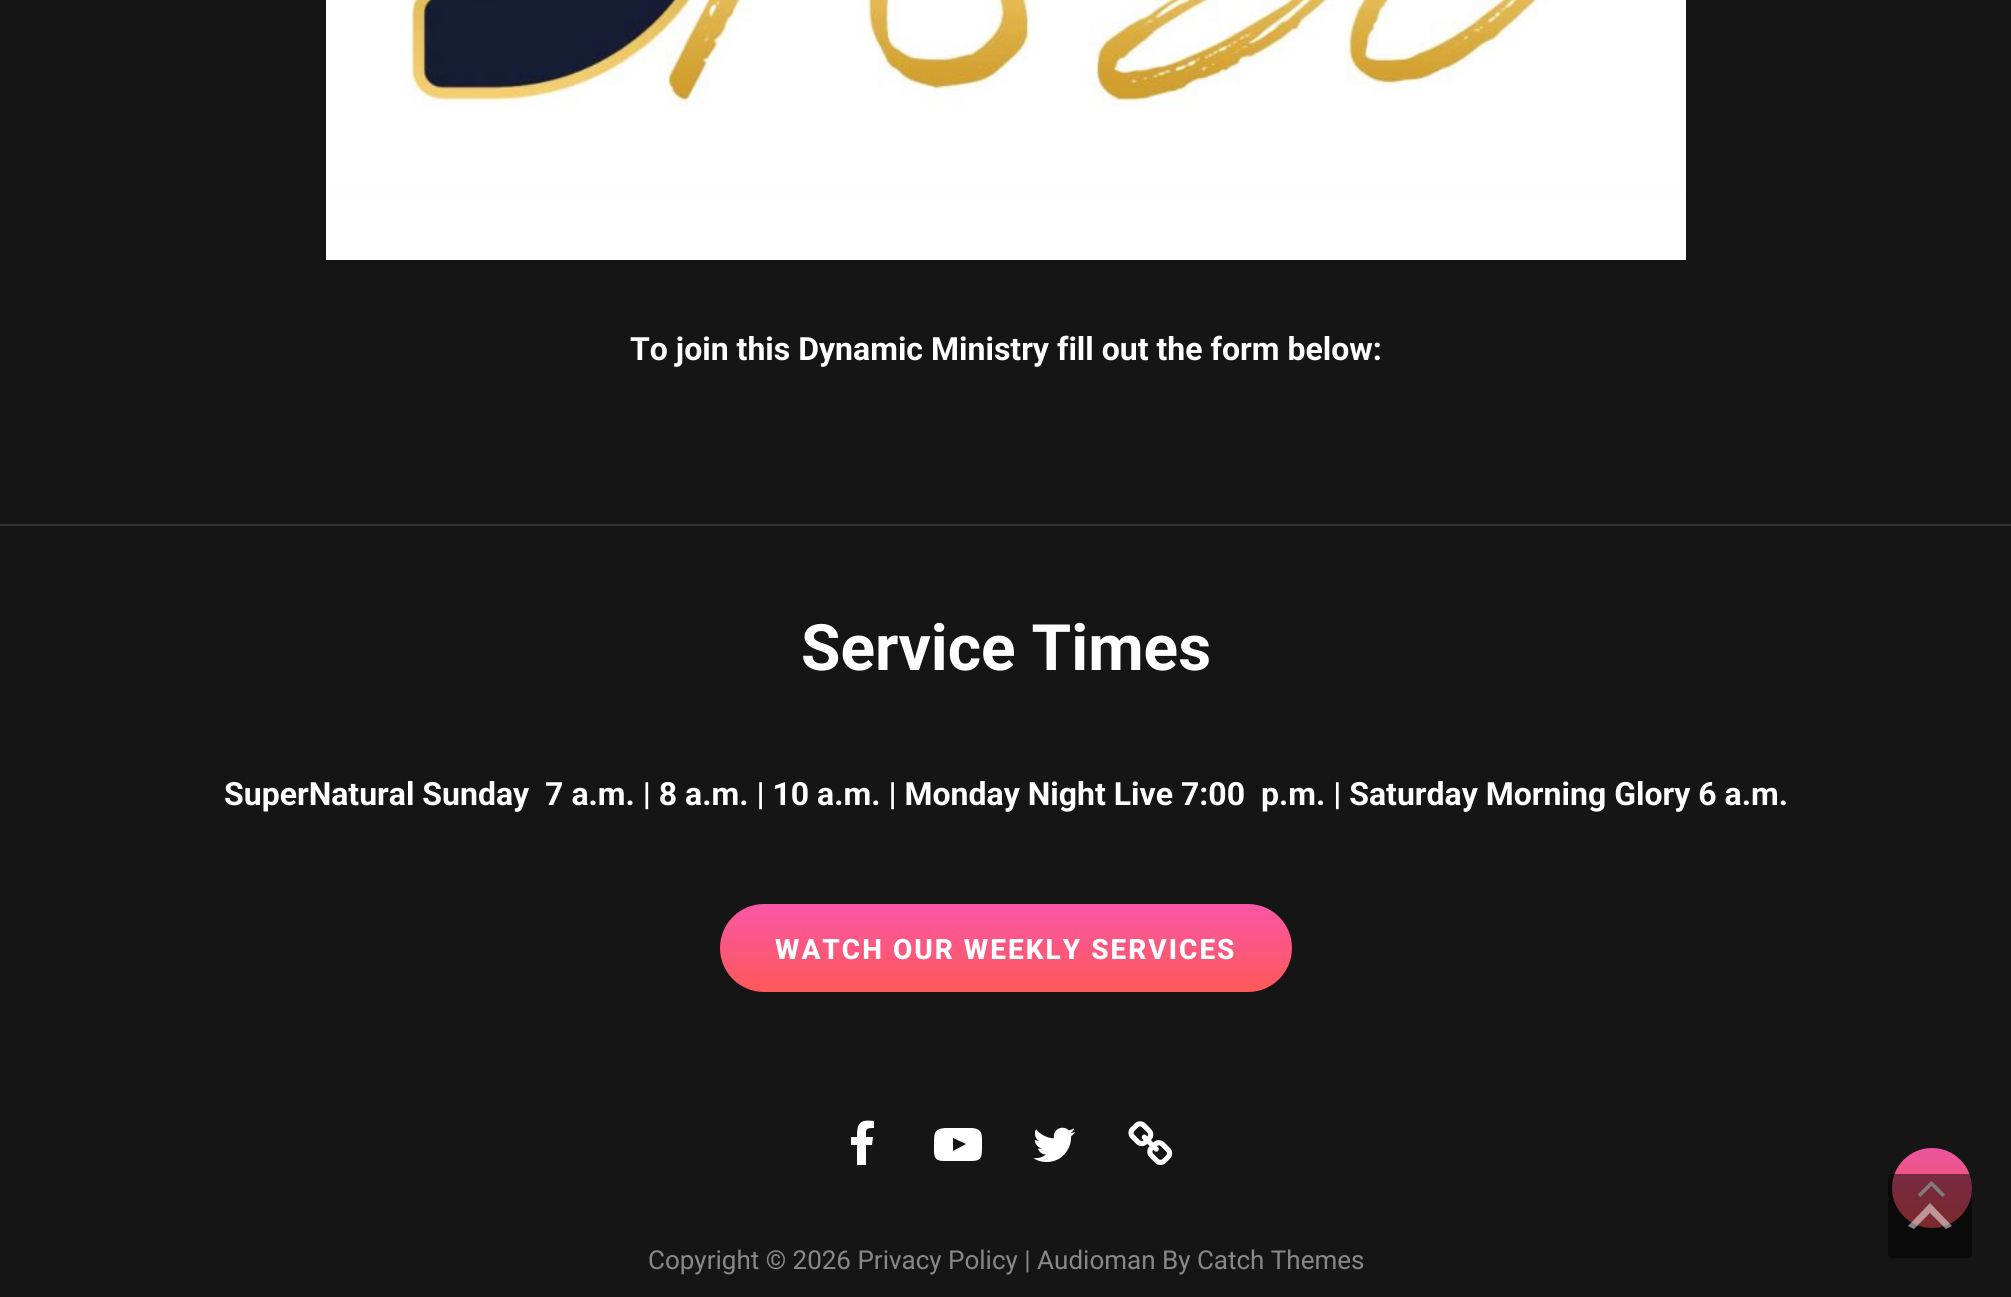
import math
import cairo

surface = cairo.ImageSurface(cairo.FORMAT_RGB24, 2011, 1297)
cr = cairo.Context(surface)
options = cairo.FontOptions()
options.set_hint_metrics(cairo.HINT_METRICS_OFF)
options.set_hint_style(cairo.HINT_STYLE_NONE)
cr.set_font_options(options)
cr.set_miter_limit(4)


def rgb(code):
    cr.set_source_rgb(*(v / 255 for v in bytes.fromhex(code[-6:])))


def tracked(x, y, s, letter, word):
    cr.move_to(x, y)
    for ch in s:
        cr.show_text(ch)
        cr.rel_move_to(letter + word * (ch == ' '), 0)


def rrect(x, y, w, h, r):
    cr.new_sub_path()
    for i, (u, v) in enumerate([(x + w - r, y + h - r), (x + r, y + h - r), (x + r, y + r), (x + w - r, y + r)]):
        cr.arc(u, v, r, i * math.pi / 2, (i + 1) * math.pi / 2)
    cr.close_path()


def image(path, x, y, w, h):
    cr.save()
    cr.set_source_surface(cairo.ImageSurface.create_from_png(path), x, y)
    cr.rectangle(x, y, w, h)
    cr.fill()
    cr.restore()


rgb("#151515")
cr.paint()
rgb("#333333")
cr.rectangle(0, 524, 2011, 2)
cr.fill()
image("img/1.png", 326, 0, 1360, 260)
gradient = cairo.LinearGradient(1006, 904, 1006, 992)
gradient.add_color_stop_rgba(0, 0.973, 0.341, 0.651, 1)
gradient.add_color_stop_rgba(1, 1, 0.345, 0.345, 1)
cr.set_source(gradient)
rrect(720, 904, 572, 88, 44)
cr.fill()
rgb("#ffffff")
cr.new_path()
cr.move_to(874, 1121)
cr.line_to(874, 1128)
cr.curve_to(865, 1128, 866, 1129, 866, 1137)
cr.line_to(873, 1137)
cr.line_to(872, 1145)
cr.line_to(866, 1145)
cr.line_to(866, 1165)
cr.line_to(857, 1165)
cr.line_to(857, 1145)
cr.line_to(851, 1145)
cr.line_to(851, 1137)
cr.line_to(857, 1137)
cr.curve_to(857, 1124, 859, 1119, 874, 1121)
cr.close_path()
cr.fill()
cr.new_path()
cr.move_to(953, 1151)
cr.line_to(966, 1144)
cr.line_to(953, 1138)
cr.close_path()
cr.move_to(958, 1128)
cr.line_to(972, 1128)
cr.curve_to(983, 1129, 982, 1135, 982, 1145)
cr.curve_to(982, 1157, 982, 1161, 971, 1161)
cr.line_to(944, 1161)
cr.curve_to(933, 1161, 934, 1155, 934, 1145)
cr.curve_to(934, 1133, 934, 1129, 945, 1128)
cr.close_path()
cr.fill()
image("img/2.png", 1033, 1127, 43, 35)
image("img/3.png", 1128, 1121, 45, 44)
gradient = cairo.LinearGradient(1932, 1148, 1932, 1228)
gradient.add_color_stop_rgba(0, 0.925, 0.329, 0.62, 1)
gradient.add_color_stop_rgba(1, 0.953, 0.333, 0.333, 1)
cr.set_source(gradient)
cr.arc(1932, 1188, 40, 0, 2 * math.pi)
cr.fill()
image("img/4.png", 1918, 1181, 27, 16)
cr.set_source_rgba(0, 0, 0, 0.5)
rrect(1888, 1174, 84, 84, 4)
cr.fill()
cr.set_source_rgba(1, 1, 1, 0.5)
cr.new_path()
cr.move_to(1946, 1229)
cr.line_to(1930, 1213)
cr.line_to(1914, 1229)
cr.line_to(1908, 1226)
cr.line_to(1930, 1203)
cr.line_to(1952, 1226)
cr.close_path()
cr.fill()
cr.select_font_face("Roboto", cairo.FONT_SLANT_NORMAL, cairo.FONT_WEIGHT_BOLD)
cr.set_font_size(32)
rgb("#ffffff")
cr.move_to(630, 360)
cr.show_text("To join this Dynamic Ministry fill out the form below:")
cr.set_font_size(64)
cr.move_to(801, 670)
cr.show_text("Service Times")
cr.set_font_size(32)
cr.move_to(224, 805)
cr.show_text("SuperNatural Sunday  7 a.m. | 8 a.m. | 10 a.m. | Monday Night Live 7:00")
cr.move_to(1261, 805)
cr.show_text("p.m. | Saturday Morning Glory 6 a.m.")
cr.select_font_face("Roboto ExtraBold")
cr.set_font_size(28)
tracked(775, 959, "WATCH OUR WEEKLY SERVICES", 2, 0)
cr.select_font_face("Roboto")
cr.set_font_size(26)
rgb("#888888")
cr.move_to(648, 1269)
cr.show_text("Copyright © 2026 Privacy Policy | Audioman By Catch Themes")
surface.write_to_png("page.png")
